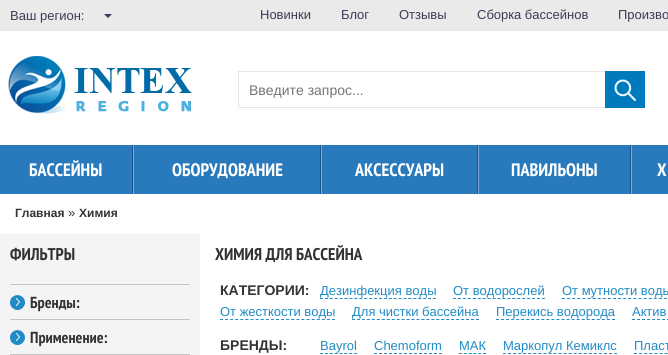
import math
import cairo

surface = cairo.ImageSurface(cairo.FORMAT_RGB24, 668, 355)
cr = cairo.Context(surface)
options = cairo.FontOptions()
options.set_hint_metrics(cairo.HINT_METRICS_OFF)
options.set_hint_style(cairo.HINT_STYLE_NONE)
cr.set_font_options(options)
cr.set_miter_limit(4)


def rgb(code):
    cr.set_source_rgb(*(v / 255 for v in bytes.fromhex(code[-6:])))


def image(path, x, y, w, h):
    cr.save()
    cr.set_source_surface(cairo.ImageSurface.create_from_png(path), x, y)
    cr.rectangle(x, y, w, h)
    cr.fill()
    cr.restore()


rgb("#ffffff")
cr.paint()
rgb("#eaeaea")
cr.rectangle(0, 0, 668, 31)
cr.fill()
image("img/1.png", 104, 14, 8, 4)
image("img/2.png", 8, 56, 184, 58)
for x, y, w, h, color in [
    (238, 71, 367, 1, "#e5e5e5"),
    (238, 107, 367, 1, "#e5e5e5"),
    (238, 71, 1, 37, "#e5e5e5"),
    (605, 71, 40, 37, "#007abd"),
]:
    rgb(color)
    cr.rectangle(x, y, w, h)
    cr.fill()
image("img/3.png", 614, 79, 22, 22)
for x, y, w, h, color in [
    (0, 145, 668, 49, "#297abc"),
    (132, 145, 1, 49, "#1e5289"),
    (320, 145, 1, 49, "#1e5289"),
    (133, 145, 1, 49, "#7fa8d3"),
    (477, 145, 1, 49, "#1e5289"),
    (321, 145, 1, 49, "#7fa8d3"),
    (630, 145, 1, 49, "#1e5289"),
    (478, 145, 1, 49, "#7fa8d3"),
    (631, 145, 1, 49, "#7fa8d3"),
    (0, 234, 200, 121, "#f4f4f4"),
]:
    rgb(color)
    cr.rectangle(x, y, w, h)
    cr.fill()
cr.new_path()
cr.move_to(320, 298.5)
cr.line_to(436, 298.5)
rgb("#208bc5")
cr.set_line_width(1)
cr.set_dash([3, 1.91])
cr.stroke()
cr.new_path()
cr.move_to(453, 298.5)
cr.line_to(545, 298.5)
cr.set_dash([3, 1.94])
cr.stroke()
cr.new_path()
cr.move_to(562, 298.5)
cr.line_to(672, 298.5)
cr.set_dash([3, 2.1])
cr.stroke()
cr.new_path()
cr.move_to(220, 319.5)
cr.line_to(335, 319.5)
cr.set_dash([3, 2.09])
cr.stroke()
cr.new_path()
cr.move_to(352, 319.5)
cr.line_to(479, 319.5)
cr.set_dash([3, 1.96])
cr.stroke()
cr.new_path()
cr.move_to(496, 319.5)
cr.line_to(615, 319.5)
cr.set_dash([3, 2.04])
cr.stroke()
cr.new_path()
cr.move_to(632, 319.5)
cr.line_to(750, 319.5)
cr.set_dash([3, 2])
cr.stroke()
cr.new_path()
cr.move_to(320, 353.5)
cr.line_to(357, 353.5)
cr.set_dash([3, 1.86])
cr.stroke()
cr.new_path()
cr.move_to(374, 353.5)
cr.line_to(442, 353.5)
cr.set_dash([3, 2])
cr.stroke()
cr.new_path()
cr.move_to(459, 353.5)
cr.line_to(486, 353.5)
cr.set_dash([3, 1.8])
cr.stroke()
cr.new_path()
cr.move_to(503, 353.5)
cr.line_to(617, 353.5)
cr.set_dash([3, 2.05])
cr.stroke()
cr.new_path()
cr.move_to(634, 353.5)
cr.line_to(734, 353.5)
cr.set_dash([3, 2.11])
cr.stroke()
rgb("#c4c4c4")
cr.rectangle(10, 284, 180, 1)
cr.fill()
image("img/4.png", 10, 295, 15, 15)
cr.rectangle(10, 319, 180, 1)
cr.fill()
image("img/4.png", 10, 330, 15, 15)
cr.rectangle(10, 354, 180, 1)
cr.fill()
cr.select_font_face("Liberation Sans")
cr.set_font_size(13)
rgb("#3e3a56")
for x, y, s in [
    (10, 20, "Ваш регион:"),
    (260, 19, "Новинки"),
    (341, 19, "Блог"),
    (399, 19, "Отзывы"),
    (477, 19, "Сборка бассейнов"),
    (618, 19, "Произво"),
]:
    cr.move_to(x, y)
    cr.show_text(s)
cr.set_font_size(14)
rgb("#757575")
cr.move_to(249, 95)
cr.show_text("Введите запрос...")
cr.select_font_face("PT Sans Narrow", cairo.FONT_SLANT_NORMAL, cairo.FONT_WEIGHT_BOLD)
cr.set_font_size(18)
rgb("#ffffff")
for x, y, s in [
    (29, 176, "БАССЕЙНЫ"),
    (172, 176, "ОБОРУДОВАНИЕ"),
    (355, 176, "АКСЕССУАРЫ"),
    (511, 176, "ПАВИЛЬОНЫ"),
    (657, 176, "Х"),
]:
    cr.move_to(x, y)
    cr.show_text(s)
cr.select_font_face("Liberation Sans", cairo.FONT_SLANT_NORMAL, cairo.FONT_WEIGHT_BOLD)
cr.set_font_size(12)
rgb("#333333")
cr.move_to(15, 217)
cr.show_text("Главная")
cr.select_font_face("Liberation Sans")
cr.set_font_size(13)
cr.move_to(68, 217)
cr.show_text("»")
cr.select_font_face("Liberation Sans", cairo.FONT_SLANT_NORMAL, cairo.FONT_WEIGHT_BOLD)
cr.set_font_size(12)
cr.move_to(79, 217)
cr.show_text("Химия")
cr.select_font_face("PT Sans Narrow", cairo.FONT_SLANT_NORMAL, cairo.FONT_WEIGHT_BOLD)
cr.set_font_size(17)
cr.move_to(215, 260)
cr.show_text("ХИМИЯ ДЛЯ БАССЕЙНА")
cr.select_font_face("Liberation Sans", cairo.FONT_SLANT_NORMAL, cairo.FONT_WEIGHT_BOLD)
cr.set_font_size(14)
cr.move_to(220, 295)
cr.show_text("КАТЕГОРИИ:")
cr.select_font_face("Liberation Sans")
cr.set_font_size(13)
rgb("#208bc5")
for x, y, s in [
    (320, 295, "Дезинфекция воды"),
    (453, 295, "От водорослей"),
    (562, 295, "От мутности воды"),
    (220, 316, "От жесткости воды"),
    (352, 316, "Для чистки бассейна"),
    (496, 316, "Перекиcь водорода"),
    (632, 316, "Актив"),
]:
    cr.move_to(x, y)
    cr.show_text(s)
cr.select_font_face("Liberation Sans", cairo.FONT_SLANT_NORMAL, cairo.FONT_WEIGHT_BOLD)
cr.set_font_size(14)
rgb("#333333")
cr.move_to(220, 350)
cr.show_text("БРЕНДЫ:")
cr.select_font_face("Liberation Sans")
cr.set_font_size(13)
rgb("#208bc5")
for x, y, s in [
    (320, 350, "Bayrol"),
    (374, 350, "Chemoform"),
    (459, 350, "МАК"),
    (503, 350, "Маркопул Кемиклс"),
    (634, 350, "Пласт"),
]:
    cr.move_to(x, y)
    cr.show_text(s)
cr.select_font_face("PT Sans Narrow", cairo.FONT_SLANT_NORMAL, cairo.FONT_WEIGHT_BOLD)
cr.set_font_size(17)
rgb("#333333")
cr.move_to(10, 260)
cr.show_text("ФИЛЬТРЫ")
cr.set_font_size(16)
cr.move_to(30, 308)
cr.show_text("Бренды:")
cr.move_to(30, 343)
cr.show_text("Применение:")
surface.write_to_png("page.png")
